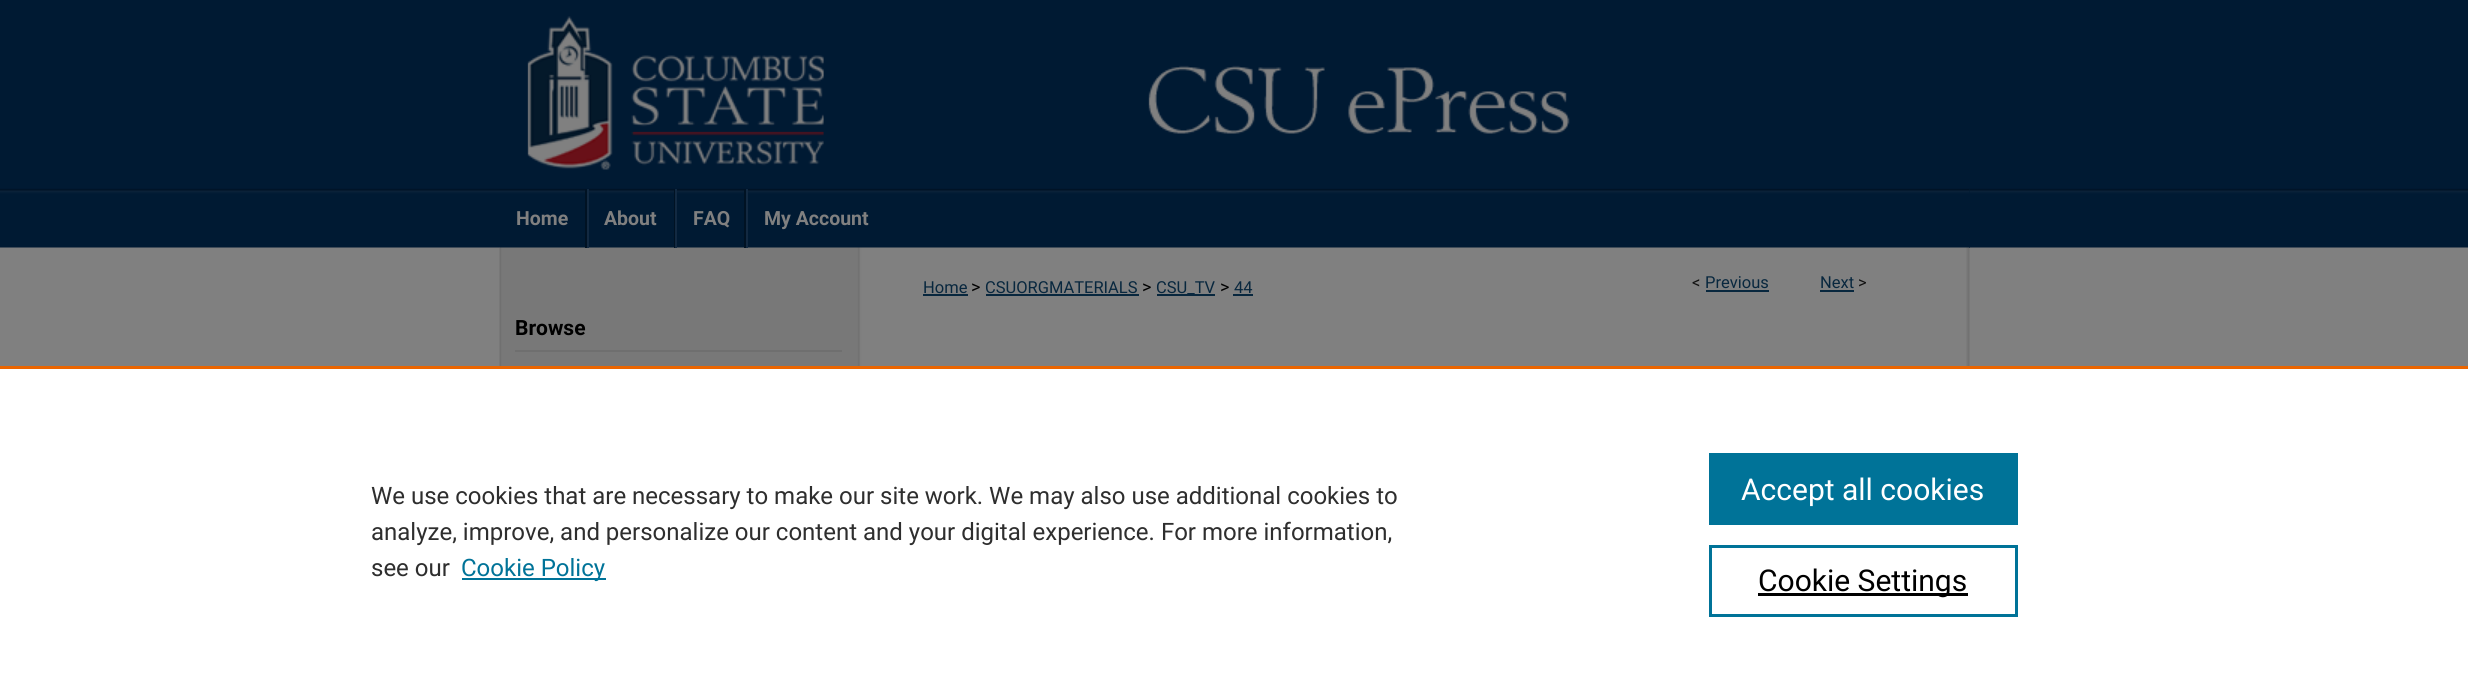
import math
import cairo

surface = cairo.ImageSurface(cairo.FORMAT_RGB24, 2468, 695)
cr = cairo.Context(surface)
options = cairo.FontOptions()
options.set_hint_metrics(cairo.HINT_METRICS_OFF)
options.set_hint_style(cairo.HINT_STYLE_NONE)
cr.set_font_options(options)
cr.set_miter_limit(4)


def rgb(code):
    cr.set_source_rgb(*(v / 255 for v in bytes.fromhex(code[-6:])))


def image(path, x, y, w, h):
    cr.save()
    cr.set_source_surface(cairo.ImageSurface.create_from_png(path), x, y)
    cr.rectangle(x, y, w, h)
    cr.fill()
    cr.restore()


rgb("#808080")
cr.paint()
image("img/1.png", 0, 0, 2468, 248)
image("img/2.png", 527, 16, 297, 154)
image("img/3.png", 1148, 65, 422, 69)
rgb("#001a33")
cr.rectangle(500, 189, 1470, 59)
cr.fill()
image("img/4.png", 499, 189, 1471, 59)
image("img/5.png", 499, 247, 1471, 119)
for x, y, w, h, color in [
    (585, 189, 2, 59, "#001223"),
    (674, 189, 1, 59, "#001223"),
    (587, 189, 2, 59, "#122941"),
    (744, 189, 2, 59, "#001223"),
    (675, 189, 2, 59, "#122941"),
    (746, 189, 2, 59, "#122941"),
    (923, 294, 45, 2, "#08273e"),
    (986, 294, 153, 2, "#08273e"),
    (1157, 294, 58, 2, "#08273e"),
    (1233, 294, 20, 2, "#08273e"),
    (1706, 290, 63, 2, "#08273e"),
    (1820, 290, 34, 2, "#08273e"),
    (515, 350, 327, 2, "#6f6f6f"),
    (0, 369, 2468, 326, "#ffffff"),
    (0, 366, 2468, 3, "#eb6500"),
    (462, 578, 144, 2, "#007398"),
    (1709, 453, 309, 72, "#007398"),
]:
    rgb(color)
    cr.rectangle(x, y, w, h)
    cr.fill()
cr.rectangle(1710.5, 546.5, 306, 69)
cr.set_line_width(3)
cr.stroke()
rgb("#000000")
cr.rectangle(1758, 593, 210, 3)
cr.fill()
cr.select_font_face("Roboto", cairo.FONT_SLANT_NORMAL, cairo.FONT_WEIGHT_BOLD)
cr.set_font_size(19.5)
rgb("#808080")
for x, y, s in [
    (516, 225, "Home"),
    (604, 225, "About"),
    (693, 225, "FAQ"),
    (764, 225, "My Account"),
]:
    cr.move_to(x, y)
    cr.show_text(s)
cr.select_font_face("Roboto")
cr.set_font_size(16.5)
rgb("#08273e")
cr.move_to(923, 293)
cr.show_text("Home")
cr.set_font_size(18)
rgb("#000000")
cr.move_to(971, 293)
cr.show_text(">")
cr.set_font_size(16.5)
rgb("#08273e")
cr.move_to(985, 293)
cr.show_text("CSUORGMATERIALS")
cr.set_font_size(18)
rgb("#000000")
cr.move_to(1142, 293)
cr.show_text(">")
cr.set_font_size(16.5)
rgb("#08273e")
cr.move_to(1156, 293)
cr.show_text("CSU_TV")
cr.set_font_size(18)
rgb("#000000")
cr.move_to(1220, 293)
cr.show_text(">")
cr.set_font_size(16.5)
rgb("#08273e")
cr.move_to(1234, 293)
cr.show_text("44")
rgb("#111111")
cr.move_to(1692, 288)
cr.show_text("<")
rgb("#08273e")
cr.move_to(1705, 288)
cr.show_text("Previous")
cr.move_to(1820, 288)
cr.show_text("Next")
rgb("#111111")
cr.move_to(1858, 288)
cr.show_text(">")
cr.select_font_face("Roboto", cairo.FONT_SLANT_NORMAL, cairo.FONT_WEIGHT_BOLD)
cr.set_font_size(21)
rgb("#000000")
cr.move_to(515, 335)
cr.show_text("Browse")
cr.select_font_face("Roboto")
cr.set_font_size(24)
rgb("#2e2e2e")
for x, y, s in [
    (371, 504, "We use cookies that are necessary to make our site work. We may also use additional cookies to"),
    (371, 540, "analyze, improve, and personalize our content and your digital experience. For more information,"),
    (371, 576, "see our"),
]:
    cr.move_to(x, y)
    cr.show_text(s)
rgb("#007398")
cr.move_to(461, 576)
cr.show_text("Cookie Policy")
cr.set_font_size(30)
rgb("#ffffff")
cr.move_to(1741, 500)
cr.show_text("Accept all cookies")
rgb("#000000")
cr.move_to(1758, 591)
cr.show_text("Cookie Settings")
surface.write_to_png("page.png")
